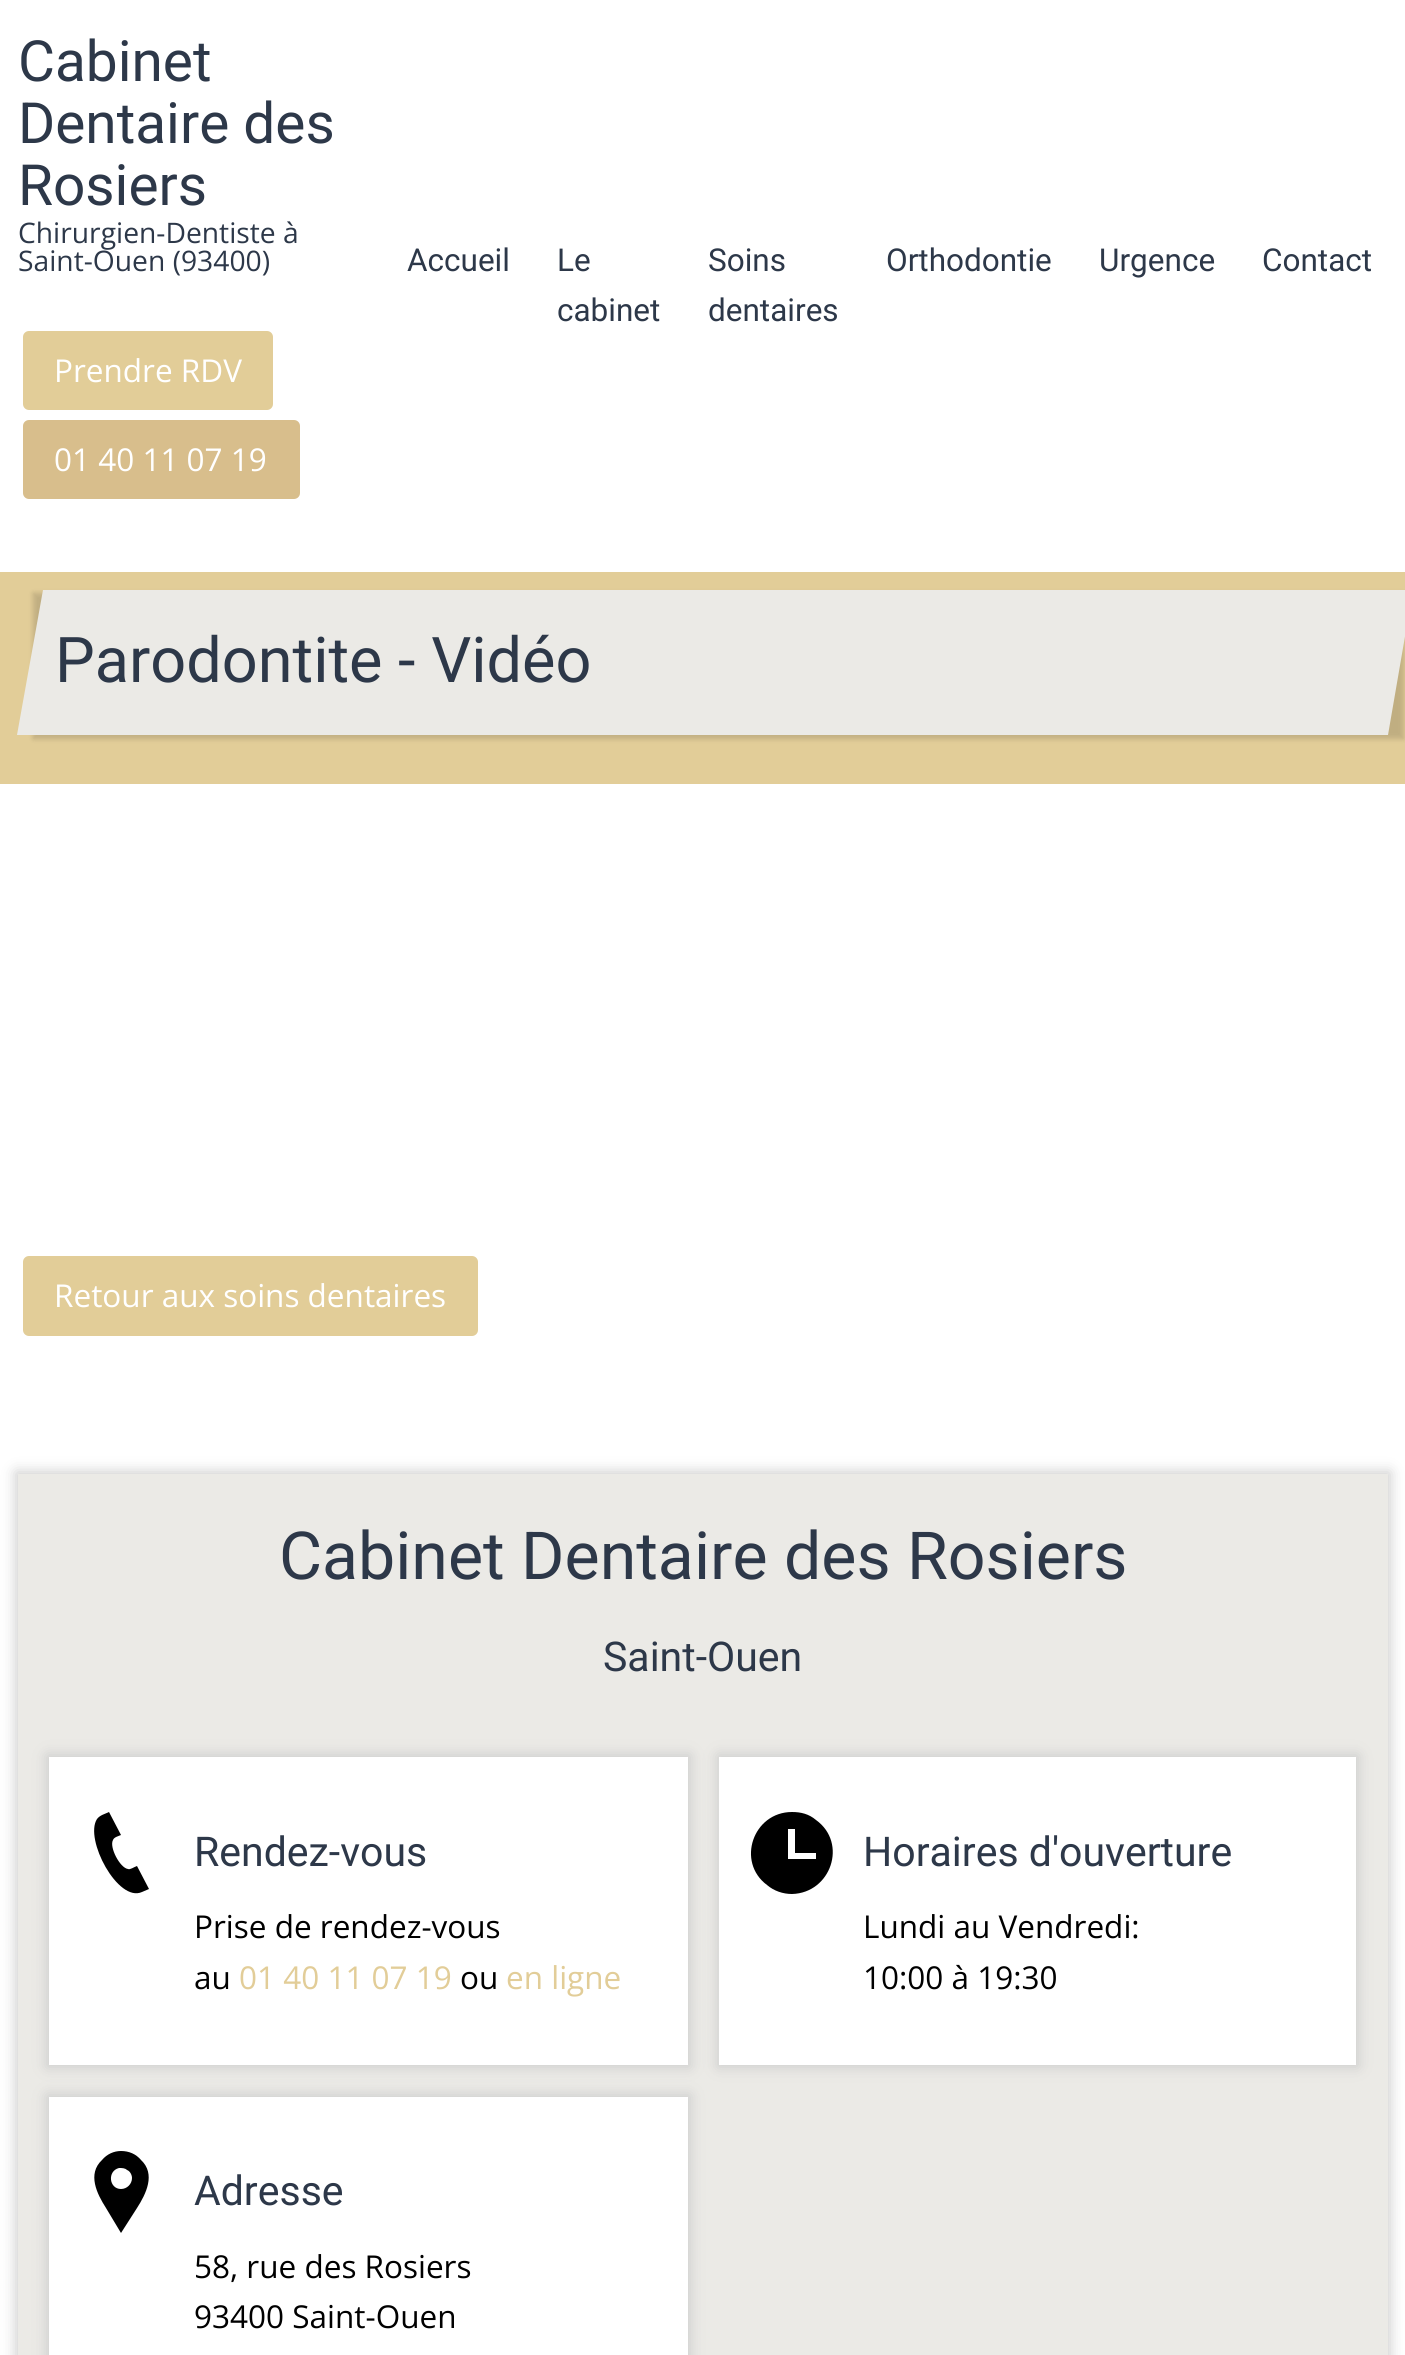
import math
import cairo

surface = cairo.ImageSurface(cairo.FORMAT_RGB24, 1405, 2355)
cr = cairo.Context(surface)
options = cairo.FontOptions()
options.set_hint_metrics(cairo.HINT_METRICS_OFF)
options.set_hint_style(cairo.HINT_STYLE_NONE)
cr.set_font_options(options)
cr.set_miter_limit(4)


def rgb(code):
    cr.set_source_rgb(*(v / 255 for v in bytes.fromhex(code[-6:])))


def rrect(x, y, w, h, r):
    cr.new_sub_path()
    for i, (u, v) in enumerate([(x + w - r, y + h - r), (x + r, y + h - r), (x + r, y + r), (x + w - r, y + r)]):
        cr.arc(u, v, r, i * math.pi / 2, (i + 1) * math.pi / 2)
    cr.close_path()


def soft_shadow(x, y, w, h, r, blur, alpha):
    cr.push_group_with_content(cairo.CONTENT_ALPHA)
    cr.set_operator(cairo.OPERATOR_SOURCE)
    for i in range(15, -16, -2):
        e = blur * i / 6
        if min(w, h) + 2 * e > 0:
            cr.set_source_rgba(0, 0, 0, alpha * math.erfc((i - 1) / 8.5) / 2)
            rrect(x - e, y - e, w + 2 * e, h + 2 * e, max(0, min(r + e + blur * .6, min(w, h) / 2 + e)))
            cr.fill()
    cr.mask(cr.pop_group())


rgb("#ffffff")
cr.paint()
rgb("#e2cd98")
rrect(20.5, 328.5, 255, 84, 8.5)
cr.fill_preserve()
rgb("#ffffff")
cr.set_line_width(5)
cr.stroke()
rgb("#d8be8c")
rrect(20.5, 417.5, 282, 84, 8.5)
cr.fill_preserve()
rgb("#ffffff")
cr.stroke()
rgb("#e2cd98")
cr.rectangle(0, 572, 1405, 212)
cr.fill()
rgb("#000000")
soft_shadow(33, 593, 1371, 146, 0, 2.5, 0.15)
rgb("#ebeae6")
cr.new_path()
cr.move_to(43, 590)
cr.line_to(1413, 590)
cr.line_to(1388, 735)
cr.line_to(17, 735)
cr.close_path()
cr.fill()
rgb("#e2cd98")
rrect(20.5, 1253.5, 460, 85, 8.5)
cr.fill_preserve()
rgb("#ffffff")
cr.stroke()
rgb("#cccccc")
soft_shadow(16, 1472, 1374, 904, 0, 7, 1)
rgb("#ebeae6")
cr.rectangle(18, 1474, 1370, 881)
cr.fill()
rgb("#cccccc")
soft_shadow(47, 1755, 643, 312, 0, 7, 1)
rgb("#ffffff")
cr.rectangle(49, 1757, 639, 308)
cr.fill()
rgb("#000000")
cr.new_path()
cr.move_to(142, 1892)
cr.curve_to(118, 1903, 84, 1839, 97, 1819)
cr.curve_to(100, 1815, 105, 1814, 109, 1812)
cr.line_to(121, 1835)
cr.curve_to(119, 1836, 114, 1837, 113, 1840)
cr.curve_to(109, 1847, 120, 1868, 128, 1869)
cr.curve_to(130, 1870, 134, 1867, 137, 1866)
cr.line_to(149, 1889)
cr.close_path()
cr.fill()
rgb("#cccccc")
soft_shadow(718, 1755, 640, 312, 0, 7, 1)
rgb("#ffffff")
cr.rectangle(719, 1757, 637, 308)
cr.fill()
rgb("#000000")
cr.new_path()
cr.move_to(792, 1812)
cr.curve_to(801, 1812, 809, 1814, 816, 1820)
cr.curve_to(848, 1843, 831, 1893, 792, 1894)
cr.curve_to(783, 1894, 774, 1891, 767, 1885)
cr.curve_to(736, 1862, 753, 1812, 792, 1812)
cr.close_path()
cr.move_to(816, 1853)
cr.line_to(795, 1853)
cr.line_to(795, 1829)
cr.line_to(788, 1829)
cr.line_to(788, 1859)
cr.line_to(816, 1859)
cr.close_path()
cr.fill()
rgb("#cccccc")
soft_shadow(47, 2095, 643, 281, 0, 7, 1)
rgb("#ffffff")
cr.rectangle(49, 2097, 639, 258)
cr.fill()
rgb("#000000")
cr.new_path()
cr.move_to(121, 2151)
cr.curve_to(129, 2151, 136, 2154, 141, 2160)
cr.curve_to(156, 2174, 146, 2194, 137, 2208)
cr.line_to(121, 2233)
cr.line_to(106, 2208)
cr.curve_to(97, 2194, 87, 2174, 102, 2160)
cr.curve_to(107, 2154, 114, 2151, 121, 2151)
cr.close_path()
cr.move_to(121, 2189)
cr.curve_to(127, 2189, 132, 2184, 132, 2178)
cr.curve_to(132, 2175, 130, 2171, 127, 2170)
cr.curve_to(125, 2168, 122, 2168, 119, 2168)
cr.curve_to(107, 2171, 109, 2189, 121, 2189)
cr.close_path()
cr.fill()
cr.select_font_face("Roboto")
cr.set_font_size(56.75)
rgb("#2d3849")
for x, y, s in [
    (18, 81, "Cabinet"),
    (18, 143, "Dentaire des"),
    (18, 205, "Rosiers"),
]:
    cr.move_to(x, y)
    cr.show_text(s)
cr.select_font_face("Open Sans")
cr.set_font_size(28.25)
cr.move_to(18, 243)
cr.show_text("Chirurgien-Dentiste à")
cr.move_to(18, 271)
cr.show_text("Saint-Ouen (93400)")
cr.set_font_size(31.5)
rgb("#ffffff")
cr.move_to(54, 382)
cr.show_text("Prendre RDV")
cr.move_to(54, 471)
cr.show_text("01 40 11 07 19")
cr.select_font_face("Roboto")
rgb("#2d3849")
for x, y, s in [
    (407, 271, "Accueil"),
    (557, 271, "Le"),
    (557, 321, "cabinet"),
    (708, 271, "Soins"),
    (708, 321, "dentaires"),
    (886, 271, "Orthodontie"),
    (1099, 271, "Urgence"),
    (1262, 271, "Contact"),
]:
    cr.move_to(x, y)
    cr.show_text(s)
cr.set_font_size(63)
cr.move_to(55, 682)
cr.show_text("Parodontite - Vidéo")
cr.select_font_face("Open Sans")
cr.set_font_size(31.5)
rgb("#ffffff")
cr.move_to(54, 1307)
cr.show_text("Retour aux soins dentaires")
cr.select_font_face("Roboto")
cr.set_font_size(66.2)
rgb("#2d3849")
cr.move_to(279, 1579)
cr.show_text("Cabinet Dentaire des Rosiers")
cr.set_font_size(41)
cr.move_to(603, 1671)
cr.show_text("Saint-Ouen")
cr.move_to(194, 1866)
cr.show_text("Rendez-vous")
cr.select_font_face("Open Sans")
cr.set_font_size(31.5)
rgb("#000000")
cr.move_to(194, 1938)
cr.show_text("Prise de rendez-vous")
cr.move_to(194, 1989)
cr.show_text("au")
rgb("#e2cd98")
cr.move_to(239, 1989)
cr.show_text("01 40 11 07 19")
rgb("#000000")
cr.move_to(460, 1989)
cr.show_text("ou")
rgb("#e2cd98")
cr.move_to(506, 1989)
cr.show_text("en ligne")
cr.select_font_face("Roboto")
cr.set_font_size(41)
rgb("#2d3849")
cr.move_to(863, 1866)
cr.show_text("Horaires d'ouverture")
cr.select_font_face("Open Sans")
cr.set_font_size(31.5)
rgb("#000000")
cr.move_to(863, 1938)
cr.show_text("Lundi au Vendredi:")
cr.move_to(863, 1989)
cr.show_text("10:00 à 19:30")
cr.select_font_face("Roboto")
cr.set_font_size(41)
rgb("#2d3849")
cr.move_to(194, 2205)
cr.show_text("Adresse")
cr.select_font_face("Open Sans")
cr.set_font_size(31.5)
rgb("#000000")
cr.move_to(194, 2278)
cr.show_text("58, rue des Rosiers")
cr.move_to(194, 2328)
cr.show_text("93400 Saint-Ouen")
surface.write_to_png("page.png")
